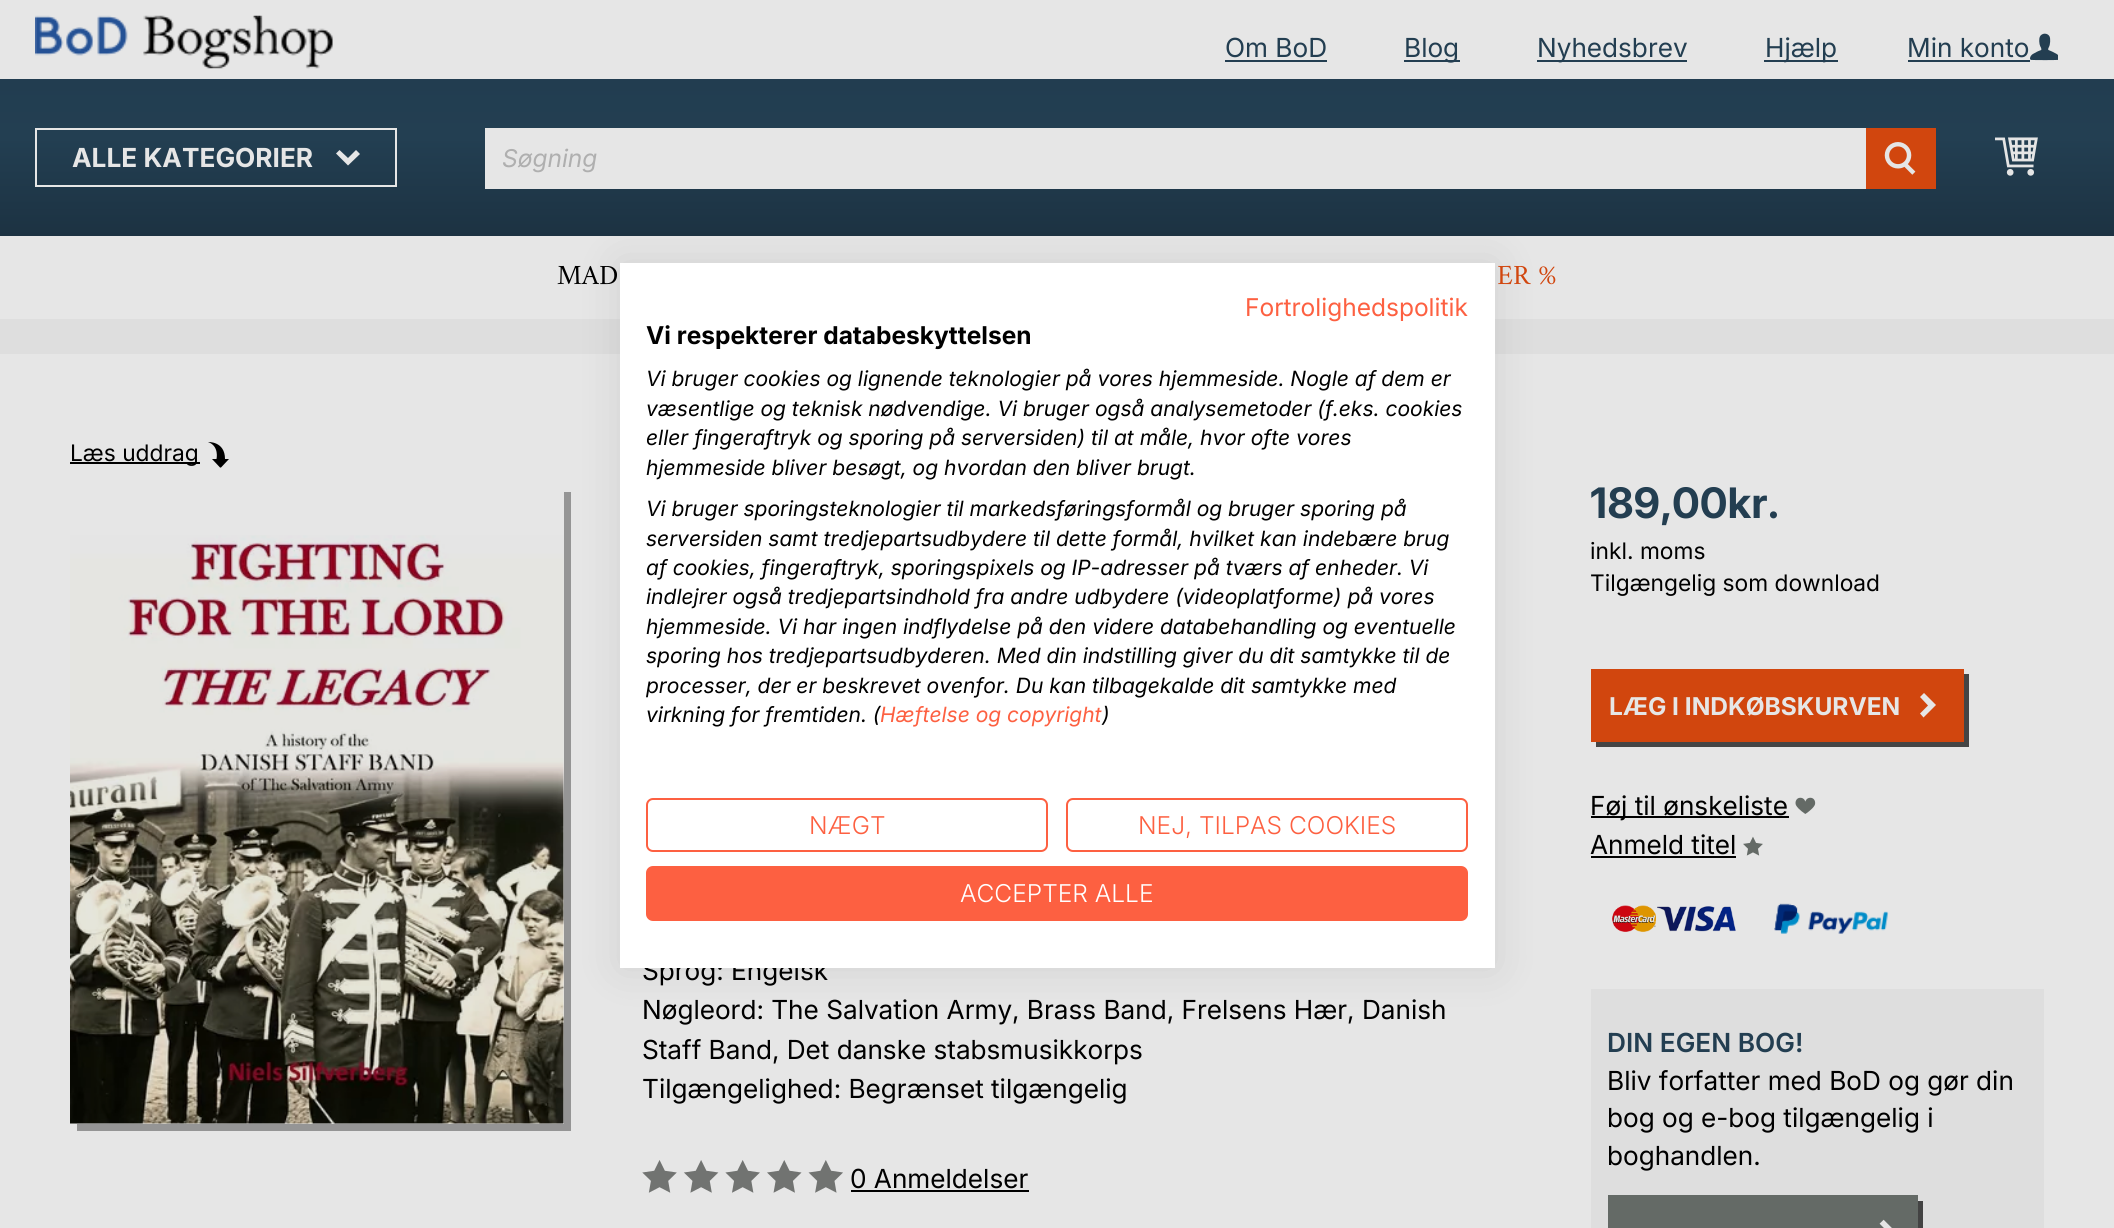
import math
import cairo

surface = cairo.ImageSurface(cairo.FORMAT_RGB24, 2114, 1228)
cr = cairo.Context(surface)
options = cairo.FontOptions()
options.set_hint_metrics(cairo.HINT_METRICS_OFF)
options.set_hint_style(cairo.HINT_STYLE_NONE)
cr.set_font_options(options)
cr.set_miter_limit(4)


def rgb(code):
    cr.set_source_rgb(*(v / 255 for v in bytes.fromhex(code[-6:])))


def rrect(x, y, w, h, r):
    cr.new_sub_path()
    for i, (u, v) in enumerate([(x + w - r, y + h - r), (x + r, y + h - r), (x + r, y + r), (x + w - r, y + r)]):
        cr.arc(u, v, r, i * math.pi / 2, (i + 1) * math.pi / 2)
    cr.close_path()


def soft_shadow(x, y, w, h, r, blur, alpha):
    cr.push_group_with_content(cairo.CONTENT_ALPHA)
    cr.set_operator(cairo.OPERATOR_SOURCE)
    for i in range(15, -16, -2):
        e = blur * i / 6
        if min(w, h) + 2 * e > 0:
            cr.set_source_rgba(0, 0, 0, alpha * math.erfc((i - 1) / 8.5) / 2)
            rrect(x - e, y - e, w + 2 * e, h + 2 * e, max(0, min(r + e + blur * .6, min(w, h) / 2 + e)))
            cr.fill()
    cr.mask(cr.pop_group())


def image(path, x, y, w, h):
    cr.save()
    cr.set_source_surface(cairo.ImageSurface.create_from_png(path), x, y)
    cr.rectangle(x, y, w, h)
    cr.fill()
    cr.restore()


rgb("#dedede")
cr.paint()
rgb("#e6e6e6")
cr.rectangle(0, 0, 2114, 319)
cr.fill()
image("img/1.png", 35, 15, 298, 54)
for x, y, w, h, color in [
    (1225, 60, 102, 2, "#233e51"),
    (1404, 60, 56, 2, "#233e51"),
    (1537, 60, 150, 2, "#233e51"),
    (1764, 60, 74, 2, "#233e51"),
    (1908, 60, 122, 2, "#233e51"),
]:
    rgb(color)
    cr.rectangle(x, y, w, h)
    cr.fill()
image("img/2.png", 2030, 33, 28, 28)
gradient = cairo.LinearGradient(1057, 79, 1057, 236)
gradient.add_color_stop_rgba(0, 0.133, 0.239, 0.314, 1)
gradient.add_color_stop_rgba(0.37, 0.137, 0.247, 0.322, 1)
gradient.add_color_stop_rgba(1, 0.11, 0.196, 0.259, 1)
cr.set_source(gradient)
cr.rectangle(0, 79, 2114, 157)
cr.fill()
cr.rectangle(36, 129, 360, 57)
rgb("#e6e6e6")
cr.stroke()
cr.new_path()
cr.move_to(348, 158)
cr.line_to(339.5, 150)
cr.line_to(336, 153.5)
cr.line_to(348, 165.5)
cr.line_to(360, 154)
cr.line_to(356, 150)
cr.close_path()
cr.fill()
cr.rectangle(485, 128, 1381, 61)
cr.fill()
rgb("#d1460e")
cr.rectangle(1866, 128, 70, 61)
cr.fill()
image("img/3.png", 1884, 142, 32, 33)
image("img/4.png", 1995, 137, 43, 39)
rgb("#e6e6e6")
cr.rectangle(0, 354, 2114, 874)
cr.fill()
rgb("#000000")
cr.rectangle(70, 462, 130, 2)
cr.fill()
cr.new_path()
cr.move_to(229, 459)
cr.line_to(221, 467.5)
cr.line_to(220, 467.5)
cr.line_to(212, 459)
cr.line_to(216.5, 459)
cr.curve_to(216.5, 459, 219.5, 446, 208, 442)
cr.curve_to(208, 442, 225, 441, 225, 459)
cr.close_path()
cr.fill()
rgb("#959595")
cr.new_path()
cr.move_to(77, 1124)
cr.line_to(77, 1131)
cr.line_to(571, 1131)
cr.line_to(571, 492)
cr.line_to(564, 492)
cr.line_to(564, 1124)
cr.close_path()
cr.fill()
image("img/5.png", 70, 535, 494, 589)
image("img/6.png", 642, 1160, 201, 33)
rgb("#000000")
cr.rectangle(851, 1190, 178, 2)
cr.fill()
rgb("#454545")
cr.new_path()
cr.move_to(1596, 742)
cr.line_to(1596, 747)
cr.line_to(1969, 747)
cr.line_to(1969, 674)
cr.line_to(1964, 674)
cr.line_to(1964, 742)
cr.close_path()
cr.fill()
rgb("#d1460e")
cr.rectangle(1591, 669, 373, 73)
cr.fill()
rgb("#e6e6e6")
cr.new_path()
cr.move_to(1928, 705.5)
cr.line_to(1920, 713.5)
cr.line_to(1923.5, 717.5)
cr.line_to(1936, 705)
cr.line_to(1924, 693)
cr.line_to(1920, 697)
cr.close_path()
cr.fill()
rgb("#000000")
cr.rectangle(1591, 816, 198, 2)
cr.fill()
image("img/7.png", 1795, 797, 21, 17)
cr.rectangle(1591, 856, 145, 2)
cr.fill()
image("img/8.png", 1743, 836, 20, 20)
image("img/9.png", 1612, 905, 124, 27)
image("img/10.png", 1774, 903, 115, 31)
rgb("#dedede")
cr.rectangle(1591, 989, 453, 239)
cr.fill()
rgb("#434343")
cr.new_path()
cr.move_to(1614, 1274)
cr.line_to(1614, 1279)
cr.line_to(1923, 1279)
cr.line_to(1923, 1201)
cr.line_to(1918, 1201)
cr.line_to(1918, 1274)
cr.close_path()
cr.fill()
rgb("#646a66")
cr.rectangle(1608, 1195, 310, 33)
cr.fill()
image("img/11.png", 1879, 1219, 13, 9)
rgb("#000000")
soft_shadow(620, 263, 875, 705, 0, 21, 0.1)
cr.select_font_face("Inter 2")
cr.set_font_size(26.25)
rgb("#233e51")
for x, y, s in [
    (1225, 57, "Om BoD"),
    (1404, 57, "Blog"),
    (1537, 57, "Nyhedsbrev"),
    (1765, 57, "Hjælp"),
    (1907, 57, "Min konto"),
]:
    cr.move_to(x, y)
    cr.show_text(s)
cr.select_font_face("Inter 2", cairo.FONT_SLANT_NORMAL, cairo.FONT_WEIGHT_BOLD)
rgb("#e6e6e6")
cr.move_to(72, 167)
cr.show_text("ALLE KATEGORIER")
cr.select_font_face("Inter", cairo.FONT_SLANT_ITALIC)
cr.set_font_size(24.5)
rgb("#afafaf")
cr.move_to(502, 167)
cr.show_text("Søgning")
cr.select_font_face("Amiri")
cr.set_font_size(28)
rgb("#000000")
cr.move_to(557, 284)
cr.show_text("MAD")
rgb("#d1460e")
cr.move_to(1497, 284)
cr.show_text("ER %")
cr.select_font_face("Inter")
cr.set_font_size(22.75)
rgb("#000000")
cr.move_to(70, 461)
cr.show_text("Læs uddrag")
cr.select_font_face("Inter 2")
cr.set_font_size(26.25)
for x, y, s in [
    (642, 980, "Sprog: Engelsk"),
    (642, 1019, "Nøgleord: The Salvation Army, Brass Band, Frelsens Hær, Danish"),
    (642, 1059, "Staff Band, Det danske stabsmusikkorps"),
    (642, 1098, "Tilgængelighed: Begrænset tilgængelig"),
    (850, 1188, "0 Anmeldelser"),
]:
    cr.move_to(x, y)
    cr.show_text(s)
cr.select_font_face("Inter", cairo.FONT_SLANT_NORMAL, cairo.FONT_WEIGHT_BOLD)
cr.set_font_size(42)
rgb("#233e51")
cr.move_to(1590, 518)
cr.show_text("189,00kr.")
cr.select_font_face("Inter")
cr.set_font_size(22.75)
rgb("#000000")
cr.move_to(1590, 559)
cr.show_text("inkl. moms")
cr.move_to(1590, 591)
cr.show_text("Tilgængelig som download")
cr.select_font_face("Inter 2", cairo.FONT_SLANT_NORMAL, cairo.FONT_WEIGHT_BOLD)
cr.set_font_size(24.5)
rgb("#e6e6e6")
cr.move_to(1609, 715)
cr.show_text("LÆG I INDKØBSKURVEN")
cr.select_font_face("Inter 2")
cr.set_font_size(26.25)
rgb("#000000")
cr.move_to(1590, 815)
cr.show_text("Føj til ønskeliste")
cr.move_to(1590, 854)
cr.show_text("Anmeld titel")
cr.select_font_face("Inter SemiBold")
rgb("#233e51")
cr.move_to(1607, 1052)
cr.show_text("DIN EGEN BOG!")
cr.select_font_face("Inter 2")
rgb("#000000")
for x, y, s in [
    (1607, 1090, "Bliv forfatter med BoD og gør din"),
    (1607, 1127, "bog og e-bog tilgængelig i"),
    (1607, 1165, "boghandlen."),
]:
    cr.move_to(x, y)
    cr.show_text(s)
rgb("#ffffff")
cr.rectangle(620, 263, 875, 705)
cr.fill()
cr.select_font_face("Inter")
cr.set_font_size(24.5)
rgb("#fd6041")
cr.move_to(1245, 316)
cr.show_text("Fortrolighedspolitik")
cr.select_font_face("Inter 2", cairo.FONT_SLANT_NORMAL, cairo.FONT_WEIGHT_BOLD)
rgb("#000000")
cr.move_to(646, 344)
cr.show_text("Vi respekterer databeskyttelsen")
cr.select_font_face("Inter", cairo.FONT_SLANT_ITALIC)
cr.set_font_size(21)
for x, y, s in [
    (646, 386, "Vi bruger cookies og lignende teknologier på vores hjemmeside. Nogle af dem er"),
    (646, 416, "væsentlige og teknisk nødvendige. Vi bruger også analysemetoder (f.eks. cookies"),
    (646, 445, "eller fingeraftryk og sporing på serversiden) til at måle, hvor ofte vores"),
    (646, 475, "hjemmeside bliver besøgt, og hvordan den bliver brugt."),
    (646, 516, "Vi bruger sporingsteknologier til markedsføringsformål og bruger sporing på"),
    (646, 546, "serversiden samt tredjepartsudbydere til dette formål, hvilket kan indebære brug"),
    (646, 575, "af cookies, fingeraftryk, sporingspixels og IP-adresser på tværs af enheder. Vi"),
    (646, 604, "indlejrer også tredjepartsindhold fra andre udbydere (videoplatforme) på vores"),
    (646, 634, "hjemmeside. Vi har ingen indflydelse på den videre databehandling og eventuelle"),
    (646, 663, "sporing hos tredjepartsudbyderen. Med din indstilling giver du dit samtykke til de"),
    (646, 693, "processer, der er beskrevet ovenfor. Du kan tilbagekalde dit samtykke med"),
    (646, 722, "virkning for fremtiden. ("),
]:
    cr.move_to(x, y)
    cr.show_text(s)
rgb("#fd6041")
cr.move_to(880, 722)
cr.show_text("Hæftelse og copyright")
rgb("#000000")
cr.move_to(1102, 722)
cr.show_text(")")
rrect(647, 799, 400, 52, 6)
rgb("#fd6041")
cr.stroke()
cr.select_font_face("Inter Light")
cr.set_font_size(24.5)
cr.move_to(809, 834)
cr.show_text("NÆGT")
rrect(1067, 799, 400, 52, 6)
cr.stroke()
cr.move_to(1138, 834)
cr.show_text("NEJ, TILPAS COOKIES")
rrect(647, 867, 820, 53, 6)
cr.fill_preserve()
cr.stroke()
rgb("#ffffff")
cr.move_to(960, 902)
cr.show_text("ACCEPTER ALLE")
surface.write_to_png("page.png")
